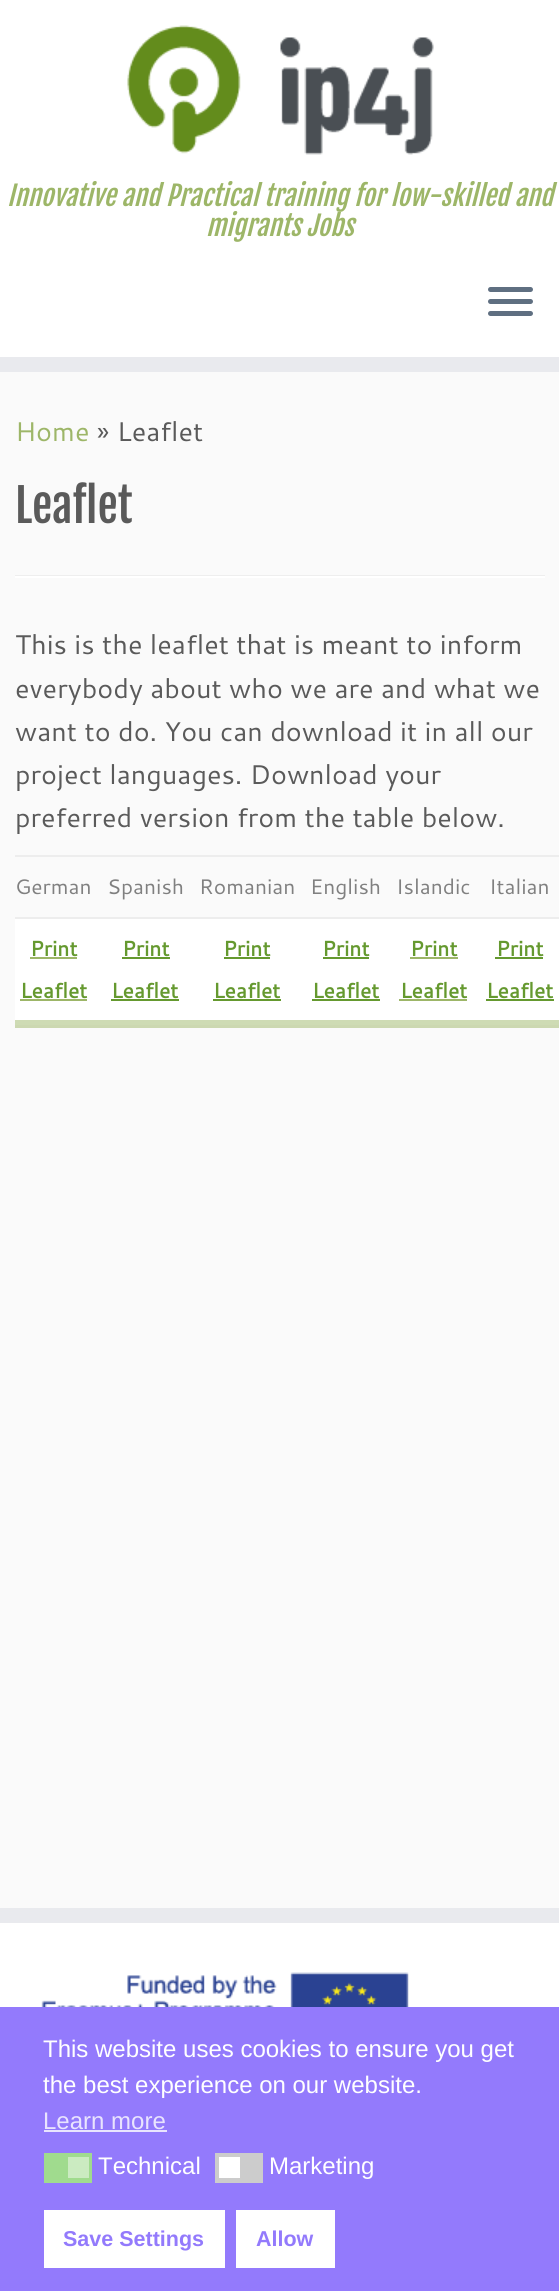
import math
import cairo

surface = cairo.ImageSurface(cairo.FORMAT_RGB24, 559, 2291)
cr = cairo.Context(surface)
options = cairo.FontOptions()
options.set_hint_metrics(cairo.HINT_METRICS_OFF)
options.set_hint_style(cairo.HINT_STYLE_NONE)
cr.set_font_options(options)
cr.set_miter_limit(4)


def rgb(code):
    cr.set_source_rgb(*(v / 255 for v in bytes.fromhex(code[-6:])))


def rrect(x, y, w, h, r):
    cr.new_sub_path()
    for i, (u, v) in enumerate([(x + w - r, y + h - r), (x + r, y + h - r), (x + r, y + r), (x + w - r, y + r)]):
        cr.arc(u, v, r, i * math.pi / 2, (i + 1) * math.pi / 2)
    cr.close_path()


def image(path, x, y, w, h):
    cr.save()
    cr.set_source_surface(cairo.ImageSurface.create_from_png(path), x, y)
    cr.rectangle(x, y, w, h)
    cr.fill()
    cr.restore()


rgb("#fafafa")
cr.paint()
for x, y, w, h, color in [
    (15, 1025, 544, 3, "#ccd8b1"),
    (0, 0, 559, 357, "#ffffff"),
    (0, 357, 559, 15, "#e9eaee"),
]:
    rgb(color)
    cr.rectangle(x, y, w, h)
    cr.fill()
image("img/1.png", 127, 25, 307, 130)
rgb("#5f6f81")
rrect(488, 287, 45, 5, 2.5)
cr.fill()
rrect(488, 299, 45, 5, 2.5)
cr.fill()
rrect(488, 311, 45, 5, 2.5)
cr.fill()
for x, y, w, h, color in [
    (15, 575, 530, 1, "#eeeeee"),
    (15, 576, 530, 2, "#ffffff"),
    (15, 855, 544, 2, "#ededed"),
    (15, 919, 544, 101, "#ffffff"),
    (15, 1020, 544, 5, "#cedbb4"),
    (30, 957, 47, 2, "#9db668"),
    (20, 999, 67, 2, "#9db668"),
    (122, 957, 48, 2, "#65992f"),
    (111, 999, 68, 2, "#65992f"),
    (224, 957, 46, 2, "#65992f"),
    (213, 999, 68, 2, "#65992f"),
    (323, 957, 46, 2, "#65992f"),
    (312, 999, 68, 2, "#65992f"),
    (410, 957, 48, 2, "#9db668"),
    (399, 999, 68, 2, "#9db668"),
    (15, 917, 544, 2, "#ededed"),
    (495, 957, 48, 2, "#65992f"),
    (486, 999, 68, 2, "#65992f"),
    (0, 1923, 559, 84, "#ffffff"),
    (0, 1908, 559, 15, "#e9eaee"),
]:
    rgb(color)
    cr.rectangle(x, y, w, h)
    cr.fill()
image("img/2.png", 41, 1972, 368, 35)
for x, y, w, h, color in [
    (0, 2007, 559, 284, "#937afc"),
    (44, 2130, 123, 2, "#e9e4fe"),
    (44, 2153, 48, 30, "#a0db8e"),
    (68, 2157, 21, 21, "#cbebc1"),
    (215, 2153, 48, 30, "#cccccc"),
    (219, 2157, 21, 21, "#ffffff"),
    (44, 2210, 181, 58, "#ffffff"),
    (236, 2210, 99, 58, "#ffffff"),
]:
    rgb(color)
    cr.rectangle(x, y, w, h)
    cr.fill()
cr.select_font_face("Fjalla One", cairo.FONT_SLANT_ITALIC)
cr.set_font_size(27)
rgb("#9db668")
cr.move_to(7, 206)
cr.show_text("Innovative and Practical training for low-skilled and")
cr.move_to(206, 236)
cr.show_text("migrants Jobs")
cr.select_font_face("Cantarell")
cr.move_to(15, 441)
cr.show_text("Home")
rgb("#5a5a5a")
cr.move_to(97, 441)
cr.show_text("» Leaflet")
cr.select_font_face("Fjalla One")
cr.set_font_size(45.5)
cr.move_to(15, 523)
cr.show_text("Leaflet")
cr.select_font_face("Cantarell")
cr.set_font_size(27)
for x, y, s in [
    (15, 654, "This is the leaflet that is meant to inform"),
    (15, 698, "everybody about who we are and what we"),
    (15, 741, "want to do. You can download it in all our"),
    (15, 784, "project languages. Download your"),
    (15, 827, "preferred version from the table below."),
]:
    cr.move_to(x, y)
    cr.show_text(s)
cr.set_font_size(21)
rgb("#808080")
for x, y, s in [
    (15, 894, "German"),
    (107, 894, "Spanish"),
    (199, 894, "Romanian"),
    (310, 894, "English"),
    (396, 894, "Islandic"),
    (489, 894, "Italian"),
]:
    cr.move_to(x, y)
    cr.show_text(s)
cr.select_font_face("Cantarell", cairo.FONT_SLANT_NORMAL, cairo.FONT_WEIGHT_BOLD)
rgb("#65992f")
for x, y, s in [
    (30, 956, "Print"),
    (20, 998, "Leaflet"),
    (122, 956, "Print"),
    (111, 998, "Leaflet"),
    (223, 956, "Print"),
    (213, 998, "Leaflet"),
    (322, 956, "Print"),
    (312, 998, "Leaflet"),
    (410, 956, "Print"),
    (400, 998, "Leaflet"),
    (496, 956, "Print"),
    (486, 998, "Leaflet"),
]:
    cr.move_to(x, y)
    cr.show_text(s)
cr.select_font_face("Liberation Sans")
cr.set_font_size(24)
rgb("#ffffff")
cr.move_to(43, 2057)
cr.show_text("This website uses cookies to ensure you get")
cr.move_to(43, 2093)
cr.show_text("the best experience on our website.")
rgb("#e9e4fe")
cr.move_to(43, 2129)
cr.show_text("Learn more")
rgb("#ffffff")
cr.move_to(98, 2174)
cr.show_text("Technical")
cr.move_to(269, 2174)
cr.show_text("Marketing")
cr.select_font_face("Liberation Sans", cairo.FONT_SLANT_NORMAL, cairo.FONT_WEIGHT_BOLD)
cr.set_font_size(21.5)
rgb("#937afc")
cr.move_to(63, 2246)
cr.show_text("Save Settings")
cr.move_to(256, 2246)
cr.show_text("Allow")
surface.write_to_png("page.png")
